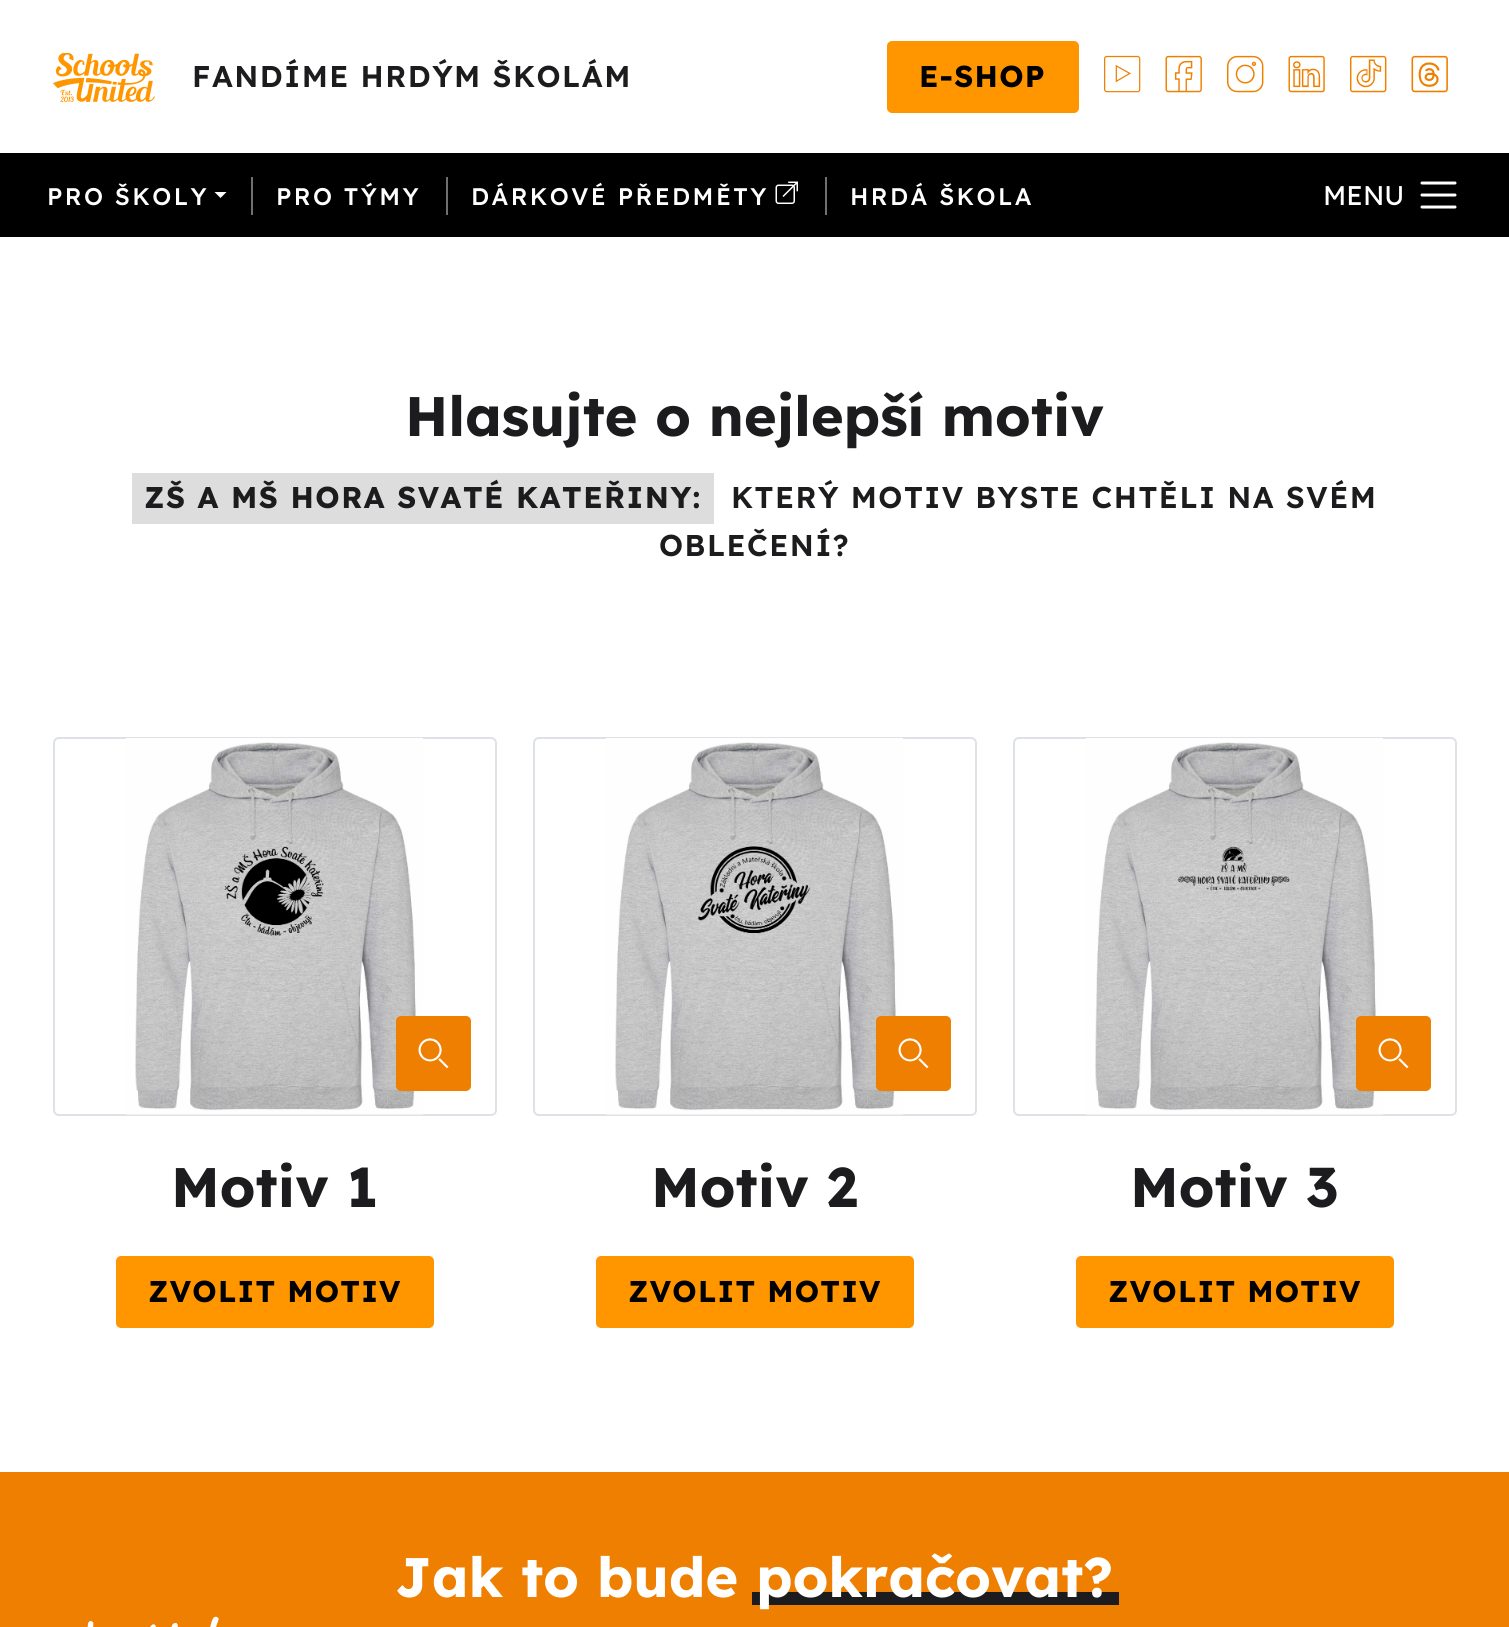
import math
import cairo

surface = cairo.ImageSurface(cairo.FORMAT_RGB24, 1509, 1627)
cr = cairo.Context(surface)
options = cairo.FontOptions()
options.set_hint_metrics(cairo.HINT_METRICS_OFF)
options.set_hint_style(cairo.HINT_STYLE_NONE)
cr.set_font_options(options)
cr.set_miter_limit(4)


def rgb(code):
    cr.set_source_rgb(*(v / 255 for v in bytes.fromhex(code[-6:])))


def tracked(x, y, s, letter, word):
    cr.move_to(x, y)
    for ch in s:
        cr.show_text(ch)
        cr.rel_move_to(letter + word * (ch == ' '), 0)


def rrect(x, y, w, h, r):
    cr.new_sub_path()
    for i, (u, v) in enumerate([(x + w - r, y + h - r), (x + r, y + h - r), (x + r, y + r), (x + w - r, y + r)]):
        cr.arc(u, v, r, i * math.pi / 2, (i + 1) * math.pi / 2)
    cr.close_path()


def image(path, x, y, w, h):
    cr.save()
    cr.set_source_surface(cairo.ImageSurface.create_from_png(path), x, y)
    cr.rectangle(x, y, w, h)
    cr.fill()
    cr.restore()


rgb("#ffffff")
cr.paint()
image("img/1.png", 53, 53, 102, 49)
rgb("#ff9600")
rrect(888, 42, 190, 70, 4)
cr.fill_preserve()
cr.stroke()
image("img/2.png", 1104, 55, 37, 38)
image("img/3.png", 1165, 55, 37, 38)
image("img/4.png", 1227, 55, 37, 38)
image("img/5.png", 1288, 55, 37, 38)
image("img/6.png", 1350, 55, 37, 38)
image("img/7.png", 1411, 55, 37, 38)
rgb("#000000")
cr.rectangle(0, 153, 1509, 84)
cr.fill()
rgb("#ffffff")
cr.new_path()
cr.move_to(214.5, 192)
cr.line_to(226.5, 192)
cr.line_to(220.5, 198)
cr.close_path()
cr.fill()
rgb("#6f6f6f")
cr.rectangle(251, 177, 2, 38)
cr.fill()
cr.rectangle(446, 177, 2, 38)
cr.fill()
image("img/8.png", 775, 181, 23, 23)
cr.rectangle(825, 177, 2, 38)
cr.fill()
cr.new_path()
cr.move_to(1422, 183)
cr.line_to(1455, 183)
cr.move_to(1422, 195)
cr.line_to(1455, 195)
cr.move_to(1422, 207)
cr.line_to(1455, 207)
rgb("#ffffff")
cr.set_line_width(3)
cr.set_line_cap(cairo.LINE_CAP_ROUND)
cr.stroke()
rgb("#dddddd")
cr.rectangle(132, 473, 582, 51)
cr.fill()
rrect(54, 738, 442, 377, 5)
rgb("#dee2e6")
cr.set_line_width(2)
cr.set_line_cap(cairo.LINE_CAP_BUTT)
cr.stroke()
image("img/9.png", 126, 738, 297, 377)
rgb("#ee7f00")
rrect(397, 1017, 73, 73, 4)
cr.fill_preserve()
cr.stroke()
image("img/10.png", 418, 1038, 31, 31)
rgb("#ff9600")
rrect(117, 1257, 316, 70, 4)
cr.fill_preserve()
cr.stroke()
rrect(534, 738, 442, 377, 5)
rgb("#dee2e6")
cr.stroke()
image("img/11.png", 606, 738, 297, 377)
rgb("#ee7f00")
rrect(877, 1017, 73, 73, 4)
cr.fill_preserve()
cr.stroke()
image("img/10.png", 898, 1038, 31, 31)
rgb("#ff9600")
rrect(597, 1257, 316, 70, 4)
cr.fill_preserve()
cr.stroke()
rrect(1014, 738, 442, 377, 5)
rgb("#dee2e6")
cr.stroke()
image("img/12.png", 1086, 738, 297, 377)
rgb("#ee7f00")
rrect(1357, 1017, 73, 73, 4)
cr.fill_preserve()
cr.stroke()
image("img/10.png", 1378, 1038, 31, 31)
rgb("#ff9600")
rrect(1077, 1257, 316, 70, 4)
cr.fill_preserve()
cr.stroke()
rgb("#ee7f00")
cr.rectangle(0, 1472, 1509, 155)
cr.fill()
rgb("#1c1c1e")
cr.rectangle(752, 1592, 367, 13)
cr.fill()
image("img/13.png", 87, 1616, 132, 11)
cr.select_font_face("Lexend SemiBold")
cr.set_font_size(30)
tracked(192, 87, "FANDÍME HRDÝM ŠKOLÁM", 1.5, 0)
cr.select_font_face("Lexend", cairo.FONT_SLANT_NORMAL, cairo.FONT_WEIGHT_BOLD)
rgb("#000000")
tracked(919, 87, "E-SHOP", 1.25, 0)
cr.select_font_face("Lexend Medium")
cr.set_font_size(24)
rgb("#ffffff")
for x, y, s in [
    (47, 205, "PRO ŠKOLY"),
    (276, 205, "PRO TÝMY"),
    (471, 205, "DÁRKOVÉ PŘEDMĚTY"),
    (850, 205, "HRDÁ ŠKOLA"),
]:
    tracked(x, y, s, 2.4, 0)
cr.select_font_face("Lexend")
cr.set_font_size(27)
cr.move_to(1323, 205)
cr.show_text("MENU")
cr.select_font_face("Lexend", cairo.FONT_SLANT_NORMAL, cairo.FONT_WEIGHT_BOLD)
cr.set_font_size(55.6)
rgb("#1c1c1e")
cr.move_to(405, 436)
cr.show_text("Hlasujte o nejlepší motiv")
cr.set_font_size(30)
tracked(144, 508, "ZŠ A MŠ HORA SVATÉ KATEŘINY:", 1.5, 0)
cr.select_font_face("Lexend SemiBold")
tracked(731, 508, "KTERÝ MOTIV BYSTE CHTĚLI NA SVÉM", 1.5, 0)
tracked(659, 556, "OBLEČENÍ?", 1.5, 0)
cr.select_font_face("Lexend", cairo.FONT_SLANT_NORMAL, cairo.FONT_WEIGHT_BOLD)
cr.set_font_size(55.6)
cr.move_to(171, 1207)
cr.show_text("Motiv 1")
cr.set_font_size(30)
rgb("#000000")
tracked(148, 1302, "ZVOLIT MOTIV", 1.25, 0)
cr.set_font_size(55.6)
rgb("#1c1c1e")
cr.move_to(651, 1207)
cr.show_text("Motiv 2")
cr.set_font_size(30)
rgb("#000000")
tracked(628, 1302, "ZVOLIT MOTIV", 1.25, 0)
cr.set_font_size(55.6)
rgb("#1c1c1e")
cr.move_to(1130, 1207)
cr.show_text("Motiv 3")
cr.set_font_size(30)
rgb("#000000")
tracked(1108, 1302, "ZVOLIT MOTIV", 1.25, 0)
cr.set_font_size(55.6)
rgb("#ffffff")
cr.move_to(395, 1597)
cr.show_text("Jak to bude")
cr.move_to(756, 1597)
cr.show_text("pokračovat?")
surface.write_to_png("page.png")
